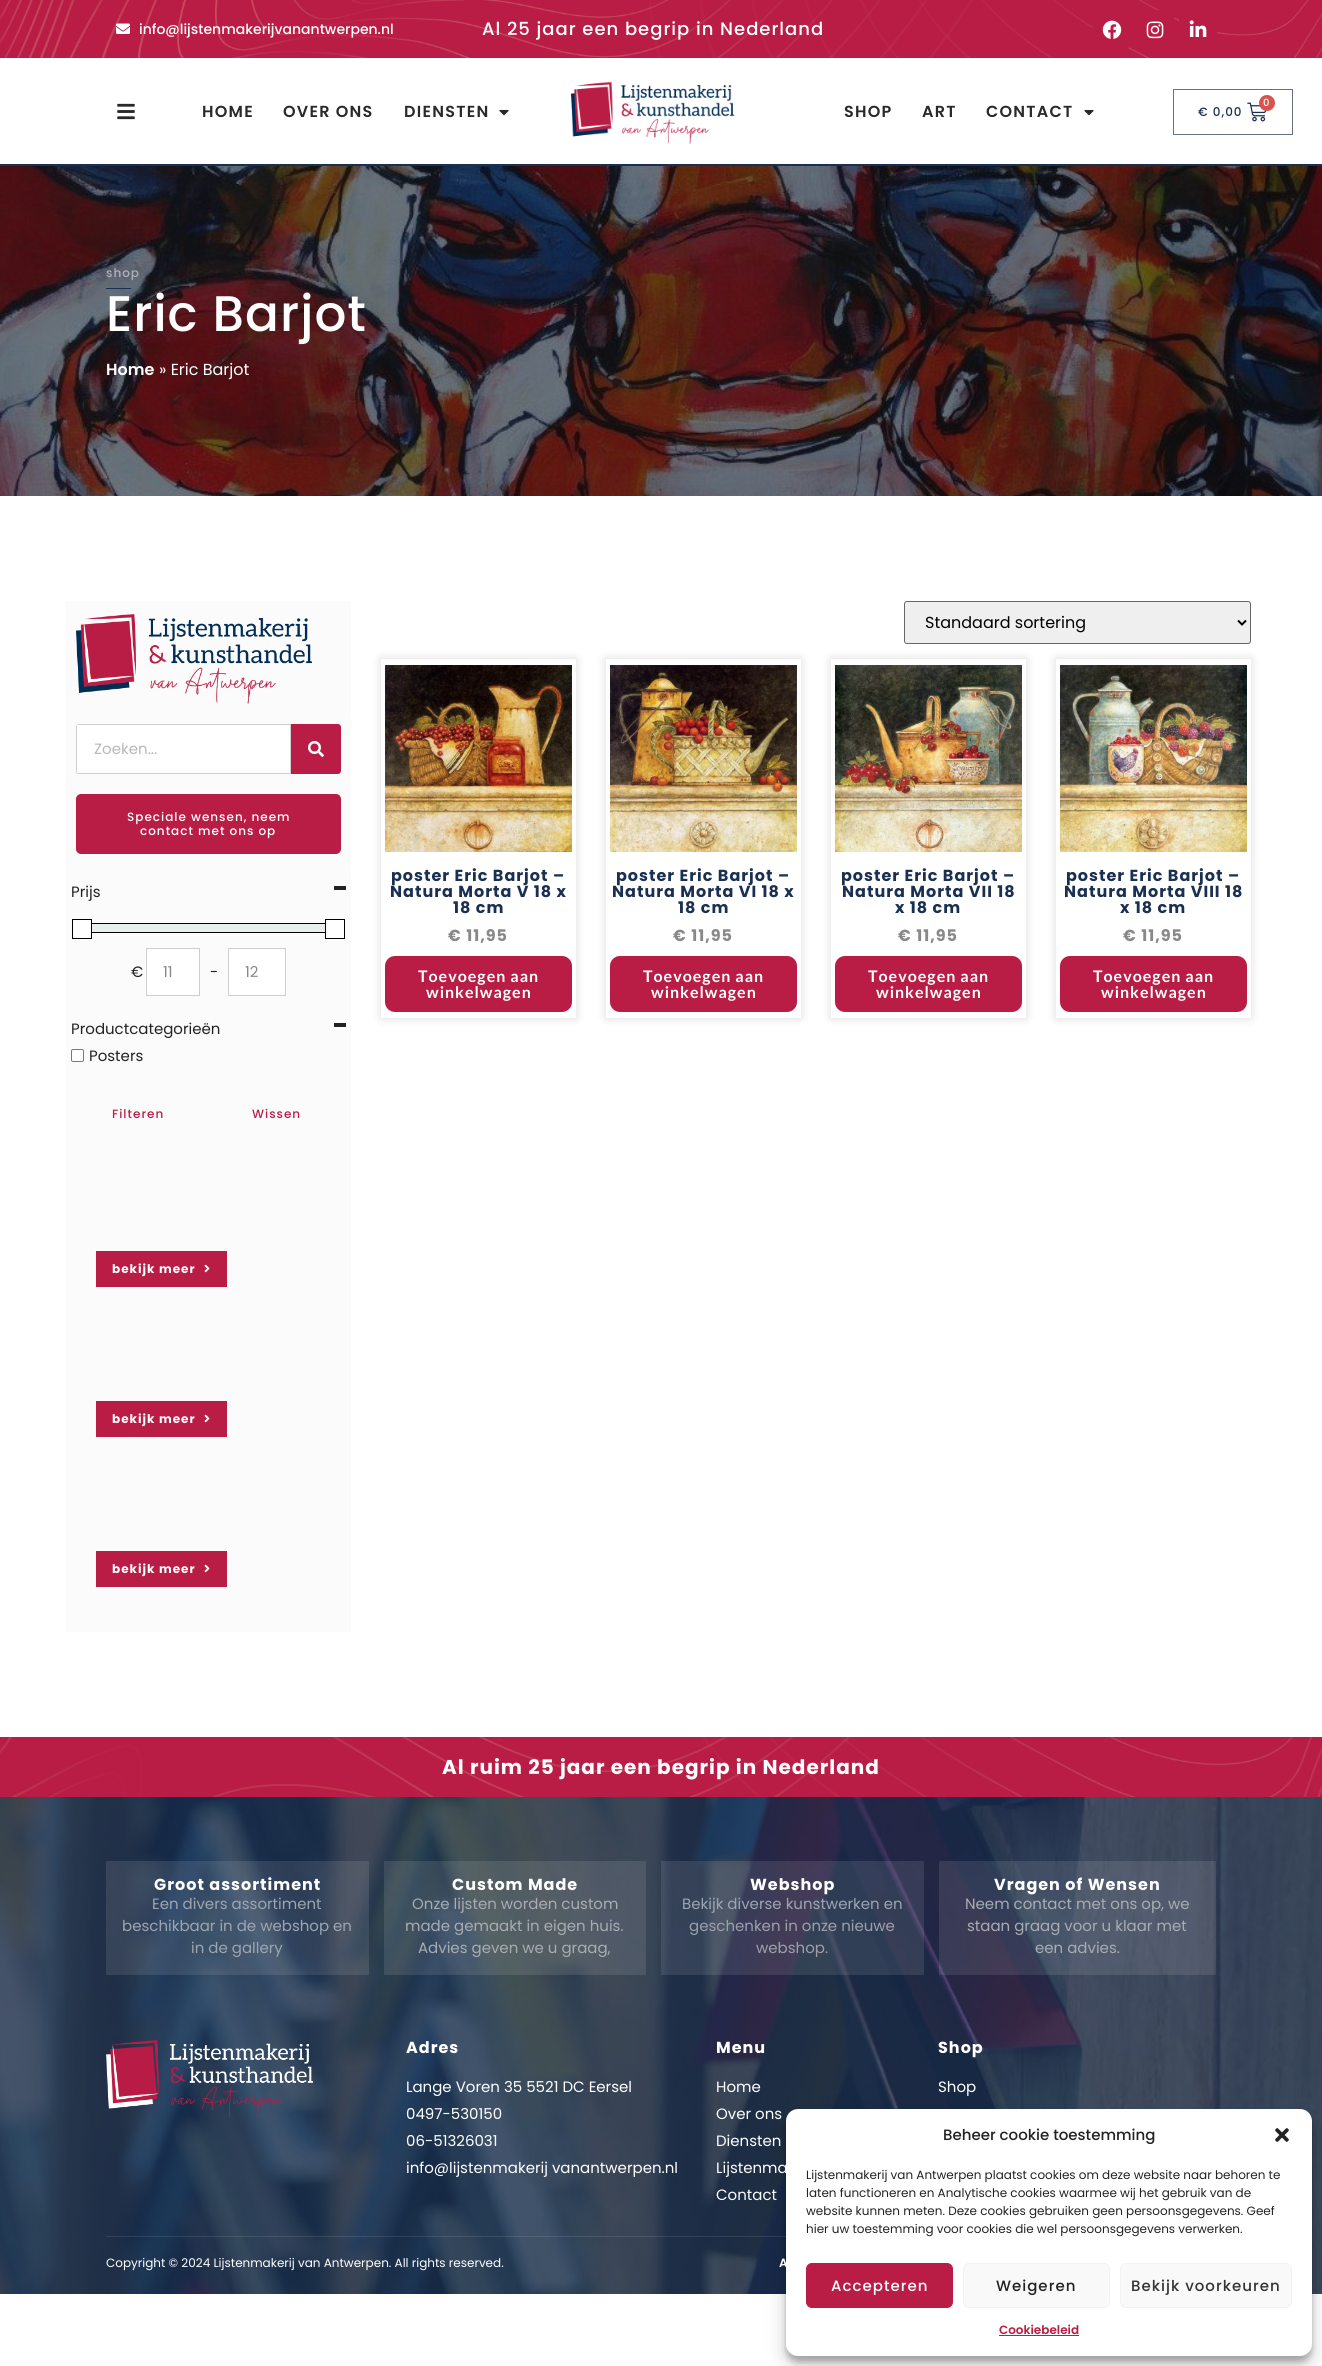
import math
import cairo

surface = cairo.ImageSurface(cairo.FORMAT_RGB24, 1322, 2366)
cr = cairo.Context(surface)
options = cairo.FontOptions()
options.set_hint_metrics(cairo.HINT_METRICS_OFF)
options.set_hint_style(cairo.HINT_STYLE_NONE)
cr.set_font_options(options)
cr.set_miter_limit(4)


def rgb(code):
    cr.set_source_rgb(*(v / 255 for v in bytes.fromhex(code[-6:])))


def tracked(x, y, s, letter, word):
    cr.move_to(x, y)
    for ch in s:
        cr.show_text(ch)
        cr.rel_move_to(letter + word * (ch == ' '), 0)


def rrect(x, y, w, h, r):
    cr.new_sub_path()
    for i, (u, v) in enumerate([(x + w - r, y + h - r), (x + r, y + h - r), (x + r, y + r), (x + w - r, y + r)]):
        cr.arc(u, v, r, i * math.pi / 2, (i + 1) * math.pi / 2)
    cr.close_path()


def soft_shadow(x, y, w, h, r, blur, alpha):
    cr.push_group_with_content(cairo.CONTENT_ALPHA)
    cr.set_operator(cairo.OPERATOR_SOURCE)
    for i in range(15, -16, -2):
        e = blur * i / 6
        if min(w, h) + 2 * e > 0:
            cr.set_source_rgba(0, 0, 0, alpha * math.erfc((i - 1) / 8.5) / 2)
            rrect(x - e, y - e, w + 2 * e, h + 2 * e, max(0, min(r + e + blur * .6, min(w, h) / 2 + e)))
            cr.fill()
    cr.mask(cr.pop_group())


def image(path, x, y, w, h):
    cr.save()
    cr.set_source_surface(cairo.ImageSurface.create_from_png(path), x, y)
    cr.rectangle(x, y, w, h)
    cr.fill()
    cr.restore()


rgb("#ffffff")
cr.paint()
rgb("#b91d46")
cr.rectangle(0, 0, 1322, 58)
cr.fill()
image("img/1.png", 0, 0, 1322, 58)
image("img/2.png", 116, 23, 14, 11)
rrect(1093, 10, 38, 38, 4)
cr.fill()
image("img/3.png", 1102, 20, 20, 19)
rrect(1136, 10, 38, 38, 4)
cr.fill()
image("img/4.png", 1146, 21, 18, 18)
rrect(1179, 10, 38, 38, 4)
cr.fill()
image("img/5.png", 1189, 20, 18, 17)
rgb("#1a3052")
cr.rectangle(0, 164, 1322, 2)
cr.fill()
image("img/6.png", 117, 103, 18, 17)
image("img/7.png", 499, 110, 10, 6)
image("img/8.png", 571, 81, 164, 63)
image("img/7.png", 1084, 110, 10, 6)
cr.rectangle(1173.5, 89.5, 119, 45)
rgb("#69727d")
cr.set_line_width(1)
cr.stroke()
image("img/9.png", 1247, 102, 20, 20)
rgb("#d9534f")
cr.arc(1267, 103, 8, 0, 2 * math.pi)
cr.fill()
image("img/10.png", 0, 166, 1322, 330)
rgb("#1a3052")
cr.rectangle(106, 288, 25, 1)
cr.fill()
rgb("#fbfbfb")
cr.rectangle(66, 601, 285, 1031)
cr.fill()
image("img/11.png", 76, 614, 236, 90)
rgb("#ffffff")
cr.new_path()
cr.move_to(79, 724)
cr.line_to(291, 724)
cr.line_to(291, 774)
cr.line_to(79, 774)
cr.curve_to(77.5, 774, 76, 772.5, 76, 771)
cr.line_to(76, 727)
cr.curve_to(76, 725.5, 77.5, 724, 79, 724)
cr.close_path()
cr.fill()
cr.set_source_rgba(0.067, 0.067, 0.067, 0.2)
cr.set_fill_rule(cairo.FILL_RULE_EVEN_ODD)
cr.new_path()
cr.move_to(79, 724)
cr.curve_to(77, 724, 76, 725, 76, 727)
cr.line_to(76, 771)
cr.curve_to(76, 773, 77, 774, 79, 774)
cr.line_to(291, 774)
cr.line_to(291, 724)
cr.close_path()
cr.move_to(77, 725)
cr.line_to(77, 773)
cr.line_to(290, 773)
cr.line_to(290, 725)
cr.close_path()
cr.fill()
rgb("#b91d46")
cr.new_path()
cr.move_to(291, 724)
cr.line_to(338, 724)
cr.curve_to(339.5, 724, 341, 725.5, 341, 727)
cr.line_to(341, 771)
cr.curve_to(341, 772.5, 339.5, 774, 338, 774)
cr.line_to(291, 774)
cr.close_path()
cr.fill()
image("img/12.png", 308, 741, 16, 16)
rrect(76, 794, 265, 60, 5)
cr.fill()
rgb("#222222")
cr.rectangle(334, 886, 12, 4)
cr.fill()
cr.rectangle(81.5, 923.5, 254, 9)
rgb("#000000")
cr.stroke()
rgb("#ffffff")
cr.rectangle(72.5, 919.5, 19, 19)
cr.fill_preserve()
rgb("#000000")
cr.stroke()
rgb("#e8eded")
cr.rectangle(92, 924, 233, 8)
cr.fill()
rgb("#ffffff")
cr.rectangle(325.5, 919.5, 19, 19)
cr.fill_preserve()
rgb("#000000")
cr.stroke()
rgb("#ffffff")
cr.rectangle(146.5, 948.5, 53, 47)
cr.fill_preserve()
rgb("#cfcfcf")
cr.stroke()
rgb("#ffffff")
cr.rectangle(228.5, 948.5, 57, 47)
cr.fill_preserve()
rgb("#cfcfcf")
cr.stroke()
rgb("#222222")
cr.rectangle(334, 1023, 12, 4)
cr.fill()
rgb("#ffffff")
rrect(71.5, 1049.5, 12, 12, 1.5)
cr.fill_preserve()
rgb("#767676")
cr.stroke()
rgb("#b91d46")
cr.rectangle(96, 1251, 131, 36)
cr.fill()
image("img/13.png", 204, 1264, 6, 9)
cr.rectangle(96, 1401, 131, 36)
cr.fill()
image("img/13.png", 204, 1414, 6, 9)
cr.rectangle(96, 1551, 131, 36)
cr.fill()
image("img/13.png", 204, 1564, 6, 9)
rgb("#efefef")
rrect(904.5, 601.5, 346, 42, 2.5)
cr.fill_preserve()
rgb("#666666")
cr.stroke()
cr.new_path()
cr.move_to(1238, 620.5)
cr.line_to(1242, 624.5)
cr.line_to(1246, 620.5)
rgb("#000000")
cr.set_line_width(2)
cr.stroke()
cr.save()
cr.new_path()
cr.move_to(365, 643)
cr.line_to(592, 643)
cr.line_to(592, 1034)
cr.line_to(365, 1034)
cr.close_path()
cr.move_to(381, 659)
cr.line_to(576, 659)
cr.line_to(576, 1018)
cr.line_to(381, 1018)
cr.close_path()
cr.clip()
rgb("#000000")
soft_shadow(381, 659, 195, 359, 0, 5, 0.14)
cr.restore()
image("img/14.png", 385, 665, 187, 187)
rgb("#b91d46")
rrect(385, 956, 187, 56, 10)
cr.fill()
cr.save()
cr.new_path()
cr.move_to(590, 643)
cr.line_to(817, 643)
cr.line_to(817, 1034)
cr.line_to(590, 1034)
cr.close_path()
cr.move_to(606, 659)
cr.line_to(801, 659)
cr.line_to(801, 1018)
cr.line_to(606, 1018)
cr.close_path()
cr.clip()
rgb("#000000")
soft_shadow(606, 659, 195, 359, 0, 5, 0.14)
cr.restore()
image("img/15.png", 610, 665, 187, 187)
rrect(610, 956, 187, 56, 10)
cr.fill()
cr.save()
cr.new_path()
cr.move_to(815, 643)
cr.line_to(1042, 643)
cr.line_to(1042, 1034)
cr.line_to(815, 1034)
cr.close_path()
cr.move_to(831, 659)
cr.line_to(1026, 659)
cr.line_to(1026, 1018)
cr.line_to(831, 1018)
cr.close_path()
cr.clip()
rgb("#000000")
soft_shadow(831, 659, 195, 359, 0, 5, 0.14)
cr.restore()
image("img/16.png", 835, 665, 187, 187)
rrect(835, 956, 187, 56, 10)
cr.fill()
cr.save()
cr.new_path()
cr.move_to(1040, 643)
cr.line_to(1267, 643)
cr.line_to(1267, 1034)
cr.line_to(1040, 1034)
cr.close_path()
cr.move_to(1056, 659)
cr.line_to(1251, 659)
cr.line_to(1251, 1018)
cr.line_to(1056, 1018)
cr.close_path()
cr.clip()
rgb("#000000")
soft_shadow(1056, 659, 195, 359, 0, 5, 0.14)
cr.restore()
image("img/17.png", 1060, 665, 187, 187)
rrect(1060, 956, 187, 56, 10)
cr.fill()
cr.rectangle(0, 1737, 1322, 60)
cr.fill()
image("img/18.png", 0, 1737, 1322, 60)
image("img/19.png", 0, 1797, 1322, 497)
cr.set_source_rgba(1, 1, 1, 0.1)
cr.rectangle(106, 1861, 263, 114)
cr.fill()
cr.rectangle(384, 1861, 262, 114)
cr.fill()
cr.rectangle(661, 1861, 263, 114)
cr.fill()
cr.rectangle(939, 1861, 277, 114)
cr.fill()
cr.rectangle(106, 2236, 680, 1)
cr.fill()
image("img/20.png", 106, 2040, 207, 78)
rgb("#000000")
soft_shadow(786, 2115, 526, 247, 12, 3, 0.23)
soft_shadow(786, 2119, 526, 247, 12, 10, 0.19)
rgb("#ffffff")
rrect(786, 2109, 526, 247, 12)
cr.fill()
image("img/21.png", 1275, 2128, 14, 14)
rgb("#b91d46")
rrect(806.5, 2263.5, 146, 44, 5.5)
cr.fill_preserve()
cr.set_line_width(1)
cr.stroke()
rgb("#f9f9f9")
rrect(963.5, 2263.5, 146, 44, 5.5)
cr.fill_preserve()
rgb("#f2f2f2")
cr.stroke()
rgb("#f9f9f9")
rrect(1120.5, 2263.5, 171, 44, 5.5)
cr.fill_preserve()
rgb("#f2f2f2")
cr.stroke()
rgb("#b91d46")
cr.rectangle(999, 2335, 80, 1)
cr.fill()
cr.select_font_face("Poppins Medium")
cr.set_font_size(14)
rgb("#ffffff")
cr.move_to(139, 34)
cr.show_text("info@lijstenmakerijvanantwerpen.nl")
cr.set_font_size(18)
tracked(482, 35, "Al 25 jaar een begrip in Nederland", 1, 0)
cr.select_font_face("Poppins SemiBold")
cr.set_font_size(16)
rgb("#292929")
for x, y, s in [
    (202, 117, "HOME"),
    (283, 117, "OVER ONS"),
    (404, 117, "DIENSTEN"),
    (844, 117, "SHOP"),
    (922, 117, "ART"),
    (986, 117, "CONTACT"),
]:
    tracked(x, y, s, 1.25, 0)
cr.select_font_face("Poppins Medium")
cr.set_font_size(10)
rgb("#ffffff")
tracked(1263, 106, "0", 1, 0)
cr.set_font_size(12)
rgb("#1a3052")
tracked(1198, 116, "€ 0,00", 1, 0)
rgb("#aeb1b8")
tracked(106, 277, "shop", 1, 0)
cr.set_font_size(50)
rgb("#ffffff")
tracked(106, 331, "Eric Barjot", 1, 0)
cr.select_font_face("Poppins SemiBold")
cr.set_font_size(16)
cr.move_to(106, 375)
cr.show_text("Home")
cr.select_font_face("Poppins")
cr.move_to(159, 375)
cr.show_text("» Eric Barjot")
cr.set_font_size(15)
rgb("#b8b8b8")
cr.move_to(94, 754)
cr.show_text("Zoeken...")
cr.select_font_face("Poppins Medium")
cr.set_font_size(12)
rgb("#ffffff")
tracked(127, 821, "Speciale wensen, neem", 1, 0)
tracked(140, 835, "contact met ons op", 1, 0)
cr.select_font_face("Poppins")
cr.set_font_size(15)
rgb("#222222")
cr.move_to(71, 897)
cr.show_text("Prijs")
cr.move_to(131, 977)
cr.show_text("€")
rgb("#888888")
cr.move_to(163, 977)
cr.show_text("11")
rgb("#222222")
cr.move_to(210, 977)
cr.show_text("-")
rgb("#888888")
cr.move_to(245, 977)
cr.show_text("12")
rgb("#222222")
cr.move_to(71, 1034)
cr.show_text("Productcategorieën")
cr.move_to(89, 1061)
cr.show_text("Posters")
cr.select_font_face("Poppins Medium")
cr.set_font_size(12)
rgb("#b91d46")
tracked(112, 1118, "Filteren", 1, 0)
tracked(252, 1118, "Wissen", 1, 0)
cr.select_font_face("Poppins", cairo.FONT_SLANT_NORMAL, cairo.FONT_WEIGHT_BOLD)
rgb("#ffffff")
for x, y, s in [
    (112, 1273, "bekijk meer"),
    (112, 1423, "bekijk meer"),
    (112, 1573, "bekijk meer"),
]:
    tracked(x, y, s, 1, 0)
cr.select_font_face("Poppins")
cr.set_font_size(16)
rgb("#000000")
cr.move_to(925, 628)
cr.show_text("Standaard sortering")
cr.select_font_face("Poppins", cairo.FONT_SLANT_NORMAL, cairo.FONT_WEIGHT_BOLD)
rgb("#1a3052")
for x, y, s in [
    (391, 881, "poster Eric Barjot –"),
    (390, 897, "Natura Morta V 18 x"),
    (453, 913, "18 cm"),
]:
    tracked(x, y, s, 1, 0)
rgb("#888888")
tracked(448, 941, "€ 11,95", 1, 0)
cr.select_font_face("Lato", cairo.FONT_SLANT_NORMAL, cairo.FONT_WEIGHT_BOLD)
rgb("#ffffff")
tracked(418, 982, "Toevoegen aan", 1, 0)
tracked(426, 998, "winkelwagen", 1, 0)
cr.select_font_face("Poppins", cairo.FONT_SLANT_NORMAL, cairo.FONT_WEIGHT_BOLD)
rgb("#1a3052")
for x, y, s in [
    (616, 881, "poster Eric Barjot –"),
    (612, 897, "Natura Morta VI 18 x"),
    (678, 913, "18 cm"),
]:
    tracked(x, y, s, 1, 0)
rgb("#888888")
tracked(673, 941, "€ 11,95", 1, 0)
cr.select_font_face("Lato", cairo.FONT_SLANT_NORMAL, cairo.FONT_WEIGHT_BOLD)
rgb("#ffffff")
tracked(643, 982, "Toevoegen aan", 1, 0)
tracked(651, 998, "winkelwagen", 1, 0)
cr.select_font_face("Poppins", cairo.FONT_SLANT_NORMAL, cairo.FONT_WEIGHT_BOLD)
rgb("#1a3052")
for x, y, s in [
    (841, 881, "poster Eric Barjot –"),
    (842, 897, "Natura Morta VII 18"),
    (895, 913, "x 18 cm"),
]:
    tracked(x, y, s, 1, 0)
rgb("#888888")
tracked(898, 941, "€ 11,95", 1, 0)
cr.select_font_face("Lato", cairo.FONT_SLANT_NORMAL, cairo.FONT_WEIGHT_BOLD)
rgb("#ffffff")
tracked(868, 982, "Toevoegen aan", 1, 0)
tracked(876, 998, "winkelwagen", 1, 0)
cr.select_font_face("Poppins", cairo.FONT_SLANT_NORMAL, cairo.FONT_WEIGHT_BOLD)
rgb("#1a3052")
for x, y, s in [
    (1066, 881, "poster Eric Barjot –"),
    (1064, 897, "Natura Morta VIII 18"),
    (1120, 913, "x 18 cm"),
]:
    tracked(x, y, s, 1, 0)
rgb("#888888")
tracked(1123, 941, "€ 11,95", 1, 0)
cr.select_font_face("Lato", cairo.FONT_SLANT_NORMAL, cairo.FONT_WEIGHT_BOLD)
rgb("#ffffff")
tracked(1093, 982, "Toevoegen aan", 1, 0)
tracked(1101, 998, "winkelwagen", 1, 0)
cr.select_font_face("Poppins", cairo.FONT_SLANT_NORMAL, cairo.FONT_WEIGHT_BOLD)
cr.set_font_size(20)
tracked(442, 1774, "Al ruim 25 jaar een begrip in Nederland", 1, 0)
cr.set_font_size(16)
tracked(154, 1890, "Groot assortiment", 1, 0)
cr.select_font_face("Poppins")
cr.set_font_size(15)
rgb("#9ca6b2")
for x, y, s in [
    (152, 1909, "Een divers assortiment"),
    (122, 1931, "beschikbaar in de webshop en"),
    (191, 1953, "in de gallery"),
]:
    cr.move_to(x, y)
    cr.show_text(s)
cr.select_font_face("Poppins", cairo.FONT_SLANT_NORMAL, cairo.FONT_WEIGHT_BOLD)
cr.set_font_size(16)
rgb("#ffffff")
tracked(452, 1890, "Custom Made", 1, 0)
cr.select_font_face("Poppins")
cr.set_font_size(15)
rgb("#a7adb2")
for x, y, s in [
    (412, 1909, "Onze lijsten worden custom"),
    (405, 1931, "made gemaakt in eigen huis."),
    (418, 1953, "Advies geven we u graag,"),
]:
    cr.move_to(x, y)
    cr.show_text(s)
cr.select_font_face("Poppins", cairo.FONT_SLANT_NORMAL, cairo.FONT_WEIGHT_BOLD)
cr.set_font_size(16)
rgb("#ffffff")
tracked(750, 1890, "Webshop", 1, 0)
cr.select_font_face("Poppins")
cr.set_font_size(15)
rgb("#9ca6b2")
cr.move_to(682, 1909)
cr.show_text("Bekijk diverse kunstwerken en")
rgb("#9da0ac")
cr.move_to(689, 1931)
cr.show_text("geschenken in onze nieuwe")
cr.move_to(756, 1953)
cr.show_text("webshop.")
cr.select_font_face("Poppins", cairo.FONT_SLANT_NORMAL, cairo.FONT_WEIGHT_BOLD)
cr.set_font_size(16)
rgb("#ffffff")
tracked(994, 1890, "Vragen of Wensen", 1, 0)
cr.select_font_face("Poppins")
cr.set_font_size(15)
rgb("#a7adb2")
for x, y, s in [
    (965, 1909, "Neem contact met ons op, we"),
    (967, 1931, "staan graag voor u klaar met"),
    (1035, 1953, "een advies."),
]:
    cr.move_to(x, y)
    cr.show_text(s)
cr.select_font_face("Poppins", cairo.FONT_SLANT_NORMAL, cairo.FONT_WEIGHT_BOLD)
cr.set_font_size(16)
rgb("#ffffff")
tracked(406, 2053, "Adres", 1, 0)
cr.select_font_face("Poppins")
cr.set_font_size(15)
for x, y, s in [
    (406, 2092, "Lange Voren 35 5521 DC Eersel"),
    (406, 2119, "0497-530150"),
    (406, 2146, "06-51326031"),
    (406, 2173, "info@lijstenmakerij vanantwerpen.nl"),
]:
    cr.move_to(x, y)
    cr.show_text(s)
cr.select_font_face("Poppins", cairo.FONT_SLANT_NORMAL, cairo.FONT_WEIGHT_BOLD)
cr.set_font_size(16)
tracked(716, 2053, "Menu", 1, 0)
cr.select_font_face("Poppins")
cr.set_font_size(15)
for x, y, s in [
    (716, 2092, "Home"),
    (716, 2119, "Over ons"),
    (716, 2146, "Diensten"),
    (716, 2173, "Lijstenma"),
    (716, 2200, "Contact"),
]:
    cr.move_to(x, y)
    cr.show_text(s)
cr.select_font_face("Poppins", cairo.FONT_SLANT_NORMAL, cairo.FONT_WEIGHT_BOLD)
cr.set_font_size(16)
tracked(938, 2053, "Shop", 1, 0)
cr.select_font_face("Poppins")
cr.set_font_size(15)
cr.move_to(938, 2092)
cr.show_text("Shop")
cr.set_font_size(12)
cr.move_to(106, 2267)
cr.show_text("Copyright © 2024 Lijstenmakerij van Antwerpen. All rights reserved.")
cr.select_font_face("Poppins SemiBold")
cr.move_to(779, 2267)
cr.show_text("A")
cr.select_font_face("Poppins Medium")
cr.set_font_size(15)
rgb("#222222")
cr.move_to(943, 2140)
cr.show_text("Beheer cookie toestemming")
cr.select_font_face("Poppins")
cr.set_font_size(12)
for x, y, s in [
    (806, 2179, "Lijstenmakerij van Antwerpen plaatst cookies om deze website naar behoren te"),
    (806, 2197, "laten functioneren en Analytische cookies waarmee wij het gebruik van de"),
    (806, 2215, "website kunnen meten. Deze cookies gebruiken geen persoonsgegevens. Geef"),
    (806, 2233, "hier uw toestemming voor cookies die wel persoonsgegevens verwerken."),
]:
    cr.move_to(x, y)
    cr.show_text(s)
cr.select_font_face("Poppins Medium")
cr.set_font_size(15)
rgb("#ffffff")
tracked(831, 2291, "Accepteren", 1, 0)
rgb("#222222")
tracked(996, 2291, "Weigeren", 1, 0)
rgb("#333333")
tracked(1131, 2291, "Bekijk voorkeuren", 1, 0)
cr.select_font_face("Poppins SemiBold")
cr.set_font_size(12)
rgb("#b91d46")
cr.move_to(999, 2334)
cr.show_text("Cookiebeleid")
surface.write_to_png("page.png")
